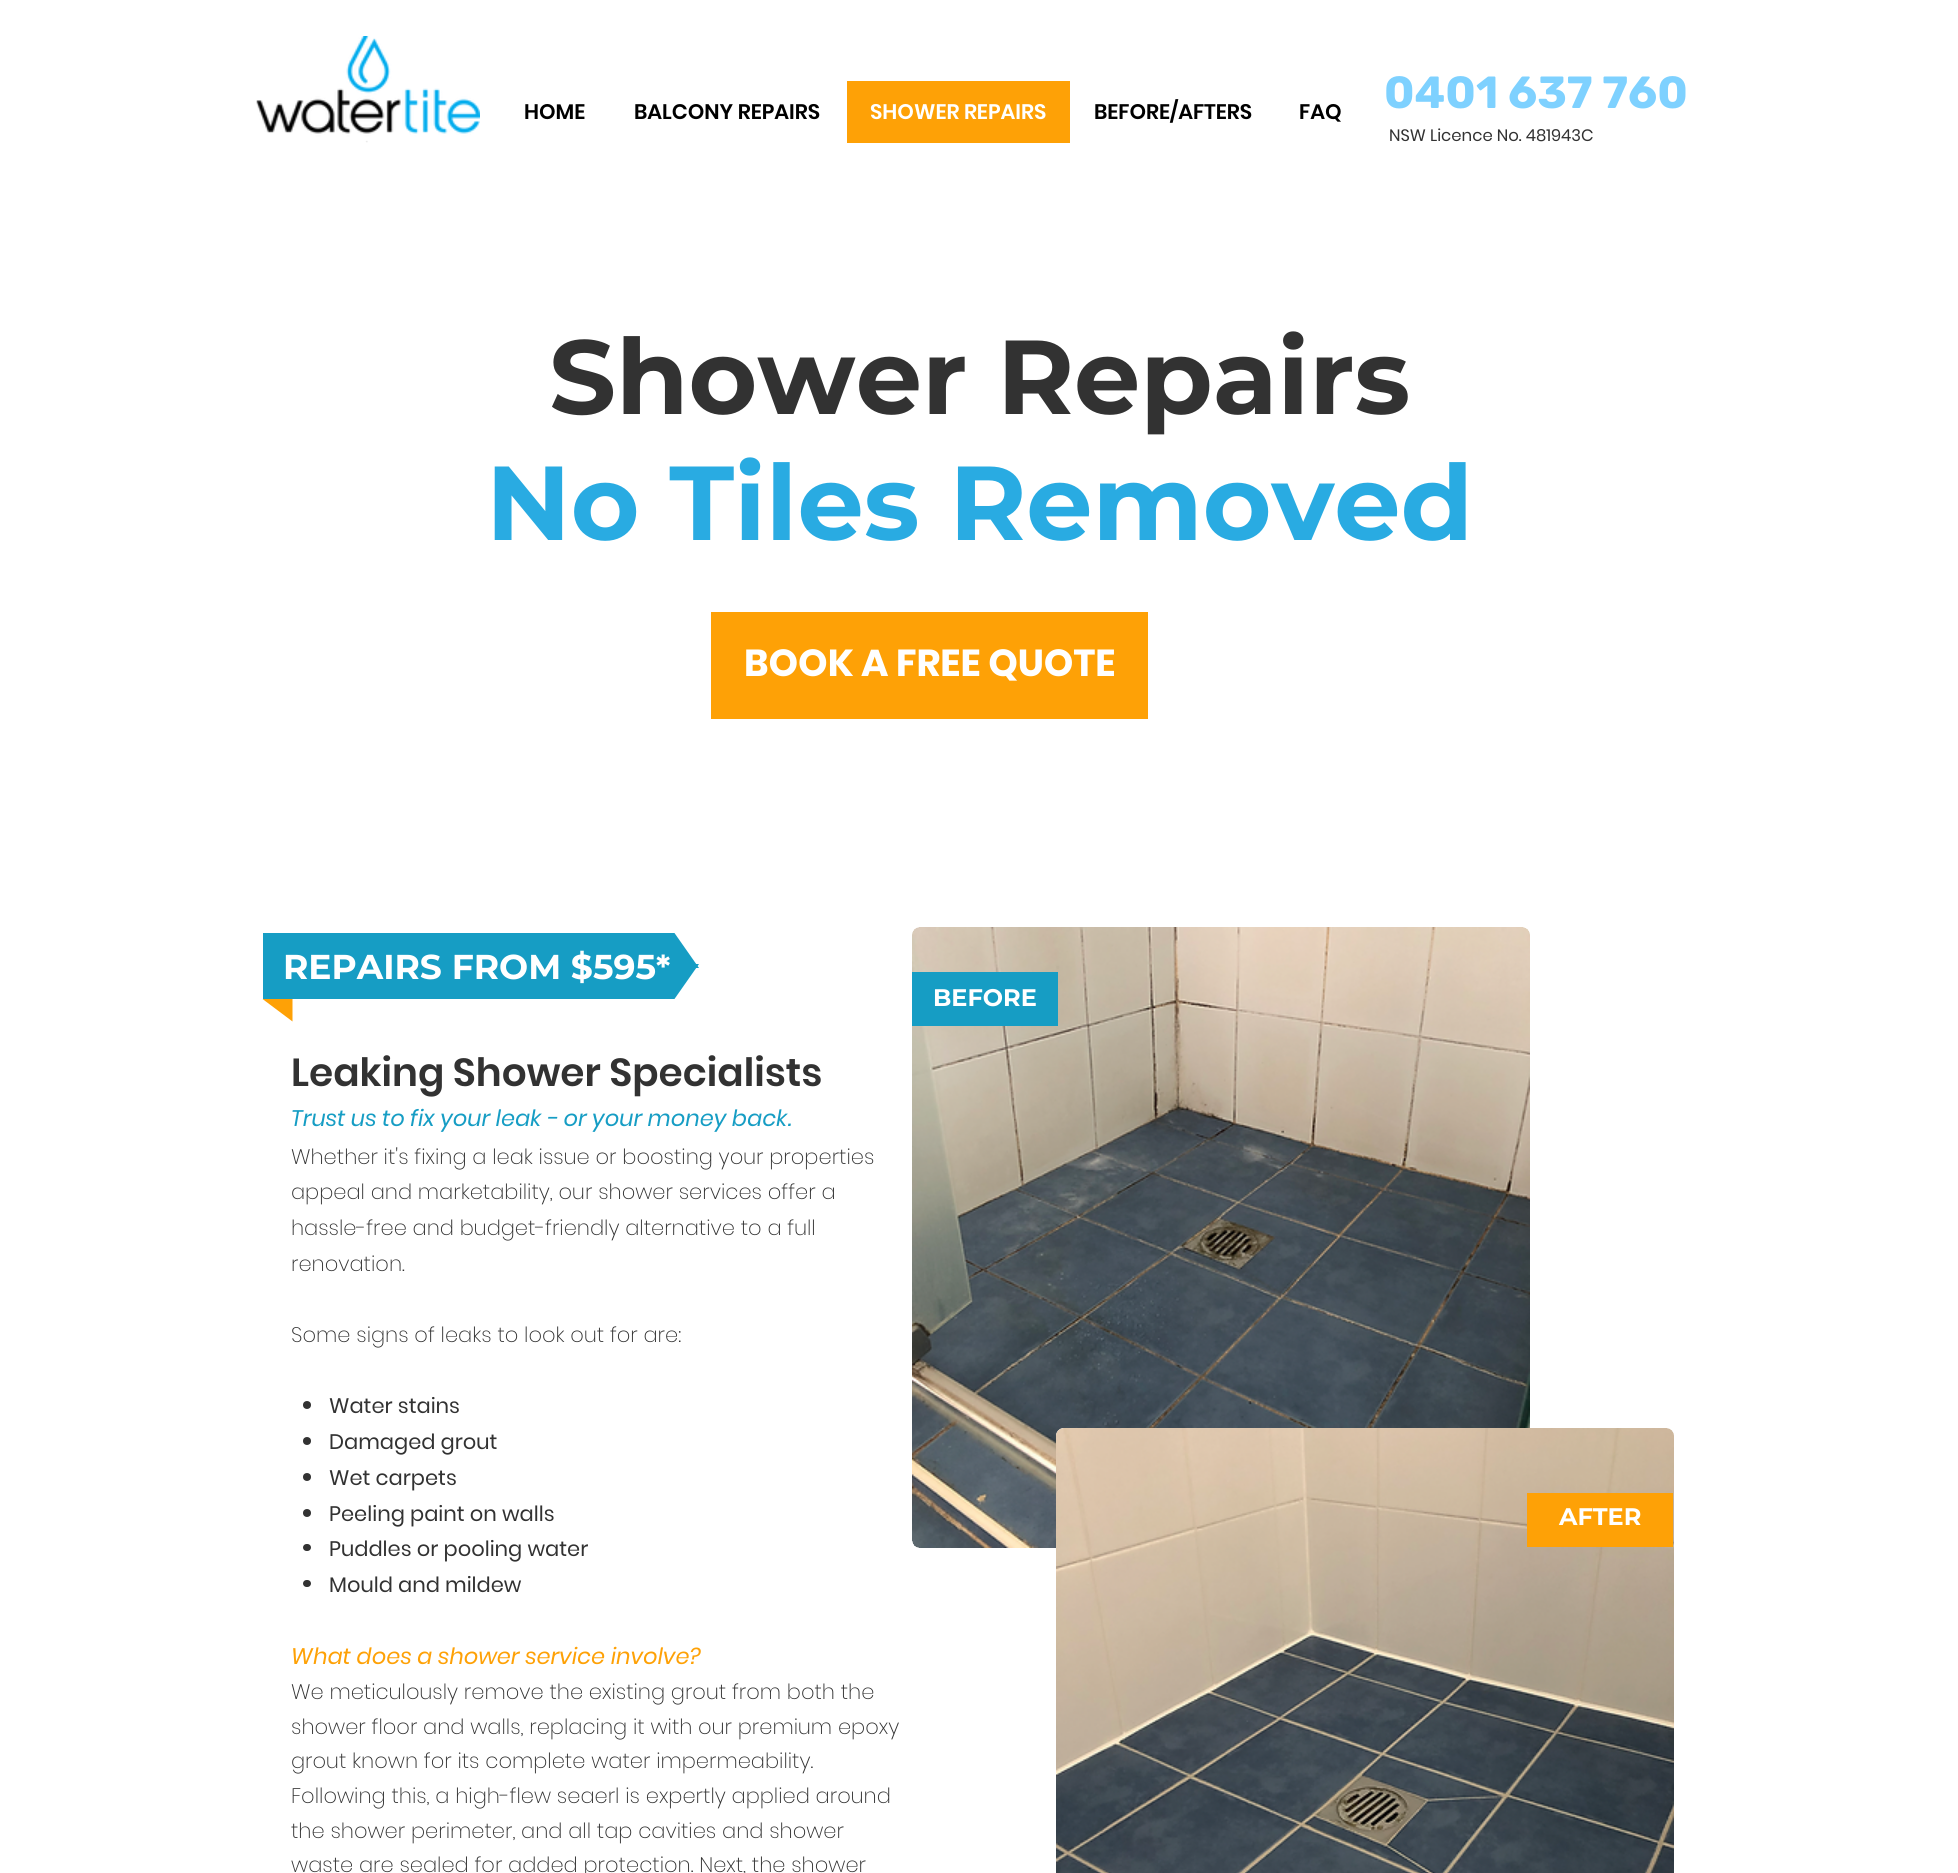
import math
import cairo

surface = cairo.ImageSurface(cairo.FORMAT_RGB24, 1958, 1873)
cr = cairo.Context(surface)
options = cairo.FontOptions()
options.set_hint_metrics(cairo.HINT_METRICS_OFF)
options.set_hint_style(cairo.HINT_STYLE_NONE)
cr.set_font_options(options)
cr.set_miter_limit(4)


def rgb(code):
    cr.set_source_rgb(*(v / 255 for v in bytes.fromhex(code[-6:])))


def rrect(x, y, w, h, r):
    cr.new_sub_path()
    for i, (u, v) in enumerate([(x + w - r, y + h - r), (x + r, y + h - r), (x + r, y + r), (x + w - r, y + r)]):
        cr.arc(u, v, r, i * math.pi / 2, (i + 1) * math.pi / 2)
    cr.close_path()


def image(path, x, y, w, h):
    cr.save()
    cr.set_source_surface(cairo.ImageSurface.create_from_png(path), x, y)
    cr.rectangle(x, y, w, h)
    cr.fill()
    cr.restore()


rgb("#ffffff")
cr.paint()
image("img/1.png", 256, 36, 224, 107)
rgb("#fea106")
cr.rectangle(847, 81, 223, 62)
cr.fill()
cr.rectangle(711, 612, 437, 107)
cr.fill()
cr.save()
cr.rectangle(263, 933, 436, 66)
cr.clip()
rgb("#169dc4")
cr.new_path()
cr.move_to(-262, 964)
cr.line_to(699, 964)
cr.line_to(174, 1713)
cr.line_to(-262, 1713)
cr.close_path()
cr.fill()
cr.new_path()
cr.move_to(699, 968)
cr.line_to(-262, 968)
cr.line_to(-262, 219)
cr.line_to(174, 219)
cr.close_path()
cr.fill()
cr.restore()
cr.new_path()
cr.move_to(292.5, 999)
cr.line_to(292.5, 1021.5)
cr.line_to(262.5, 999)
cr.close_path()
cr.fill()
image("img/2.png", 912, 927, 618, 621)
rgb("#169dc4")
cr.rectangle(912, 972, 146, 54)
cr.fill()
rgb("#323232")
cr.arc(307, 1405, 4, 0, 2 * math.pi)
cr.fill()
cr.arc(307, 1441, 4, 0, 2 * math.pi)
cr.fill()
cr.arc(307, 1477, 4, 0, 2 * math.pi)
cr.fill()
cr.arc(307, 1513, 4, 0, 2 * math.pi)
cr.fill()
rrect(303, 1544, 8, 7, 3.5)
cr.fill()
rrect(303, 1580, 8, 7, 3.5)
cr.fill()
rgb("#ffffff")
rrect(1056, 1428, 618, 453, 8)
cr.fill()
image("img/3.png", 1056, 1428, 618, 445)
rgb("#fea106")
cr.rectangle(1527, 1493, 146, 54)
cr.fill()
cr.select_font_face("Poppins SemiBold")
cr.set_font_size(21)
rgb("#000000")
cr.move_to(524, 119)
cr.show_text("HOME")
cr.move_to(634, 119)
cr.show_text("BALCONY REPAIRS")
rgb("#ffffff")
cr.move_to(870, 119)
cr.show_text("SHOWER REPAIRS")
rgb("#000000")
cr.move_to(1094, 119)
cr.show_text("BEFORE/AFTERS")
cr.move_to(1299, 119)
cr.show_text("FAQ")
cr.select_font_face("Rubik", cairo.FONT_SLANT_NORMAL, cairo.FONT_WEIGHT_BOLD)
cr.set_font_size(45)
rgb("#7ed1ff")
cr.move_to(1384, 108)
cr.show_text("0401 637 760")
cr.select_font_face("Poppins")
cr.set_font_size(16.5)
rgb("#323232")
cr.move_to(1389, 141)
cr.show_text("NSW Licence No. 481943C")
cr.select_font_face("Montserrat", cairo.FONT_SLANT_NORMAL, cairo.FONT_WEIGHT_BOLD)
cr.set_font_size(105)
cr.move_to(549, 414)
cr.show_text("Shower Repairs")
rgb("#29abe2")
cr.move_to(486, 540)
cr.show_text("No Tiles Removed")
cr.select_font_face("Poppins", cairo.FONT_SLANT_NORMAL, cairo.FONT_WEIGHT_BOLD)
cr.set_font_size(37.5)
rgb("#ffffff")
cr.move_to(744, 676)
cr.show_text("BOOK A FREE QUOTE")
cr.select_font_face("Montserrat", cairo.FONT_SLANT_NORMAL, cairo.FONT_WEIGHT_BOLD)
cr.set_font_size(34.5)
cr.move_to(283, 979)
cr.show_text("REPAIRS FROM $595")
cr.set_font_size(33)
cr.move_to(656, 979)
cr.show_text("*")
cr.set_font_size(24)
cr.move_to(933, 1006)
cr.show_text("BEFORE")
cr.select_font_face("Poppins SemiBold")
cr.set_font_size(39)
rgb("#323232")
cr.move_to(291, 1086)
cr.show_text("Leaking Shower Specialists")
cr.select_font_face("Poppins", cairo.FONT_SLANT_ITALIC)
cr.set_font_size(22.5)
rgb("#169dc4")
cr.move_to(291, 1126)
cr.show_text("Trust us to fix your leak - or your money back.")
cr.select_font_face("Poppins ExtraLight")
cr.set_font_size(21)
rgb("#323232")
for x, y, s in [
    (291, 1164, "Whether it's fixing a leak issue or boosting your properties"),
    (291, 1199, "appeal and marketability, our shower services offer a"),
    (291, 1235, "hassle-free and budget-friendly alternative to a full"),
    (291, 1271, "renovation."),
    (291, 1342, "Some signs of leaks to look out for are:"),
]:
    cr.move_to(x, y)
    cr.show_text(s)
cr.select_font_face("Poppins")
for x, y, s in [
    (329, 1413, "Water stains"),
    (329, 1449, "Damaged grout"),
    (329, 1485, "Wet carpets"),
    (329, 1521, "Peeling paint on walls"),
    (329, 1556, "Puddles or pooling water"),
    (329, 1592, "Mould and mildew"),
]:
    cr.move_to(x, y)
    cr.show_text(s)
cr.select_font_face("Poppins", cairo.FONT_SLANT_ITALIC)
cr.set_font_size(22.5)
rgb("#fea106")
cr.move_to(291, 1664)
cr.show_text("What does a shower service involve?")
cr.select_font_face("Poppins ExtraLight")
cr.set_font_size(21)
rgb("#323232")
for x, y, s in [
    (291, 1699, "We meticulously remove the existing grout from both the"),
    (291, 1734, "shower floor and walls, replacing it with our premium epoxy"),
    (291, 1768, "grout known for its complete water impermeability."),
    (291, 1803, "Following this, a high-flew seaerl is expertly applied around"),
    (291, 1838, "the shower perimeter, and all tap cavities and shower"),
    (291, 1872, "waste are sealed for added protection. Next, the shower"),
]:
    cr.move_to(x, y)
    cr.show_text(s)
cr.select_font_face("Montserrat", cairo.FONT_SLANT_NORMAL, cairo.FONT_WEIGHT_BOLD)
cr.set_font_size(24)
rgb("#ffffff")
cr.move_to(1559, 1525)
cr.show_text("AFTER")
surface.write_to_png("page.png")
